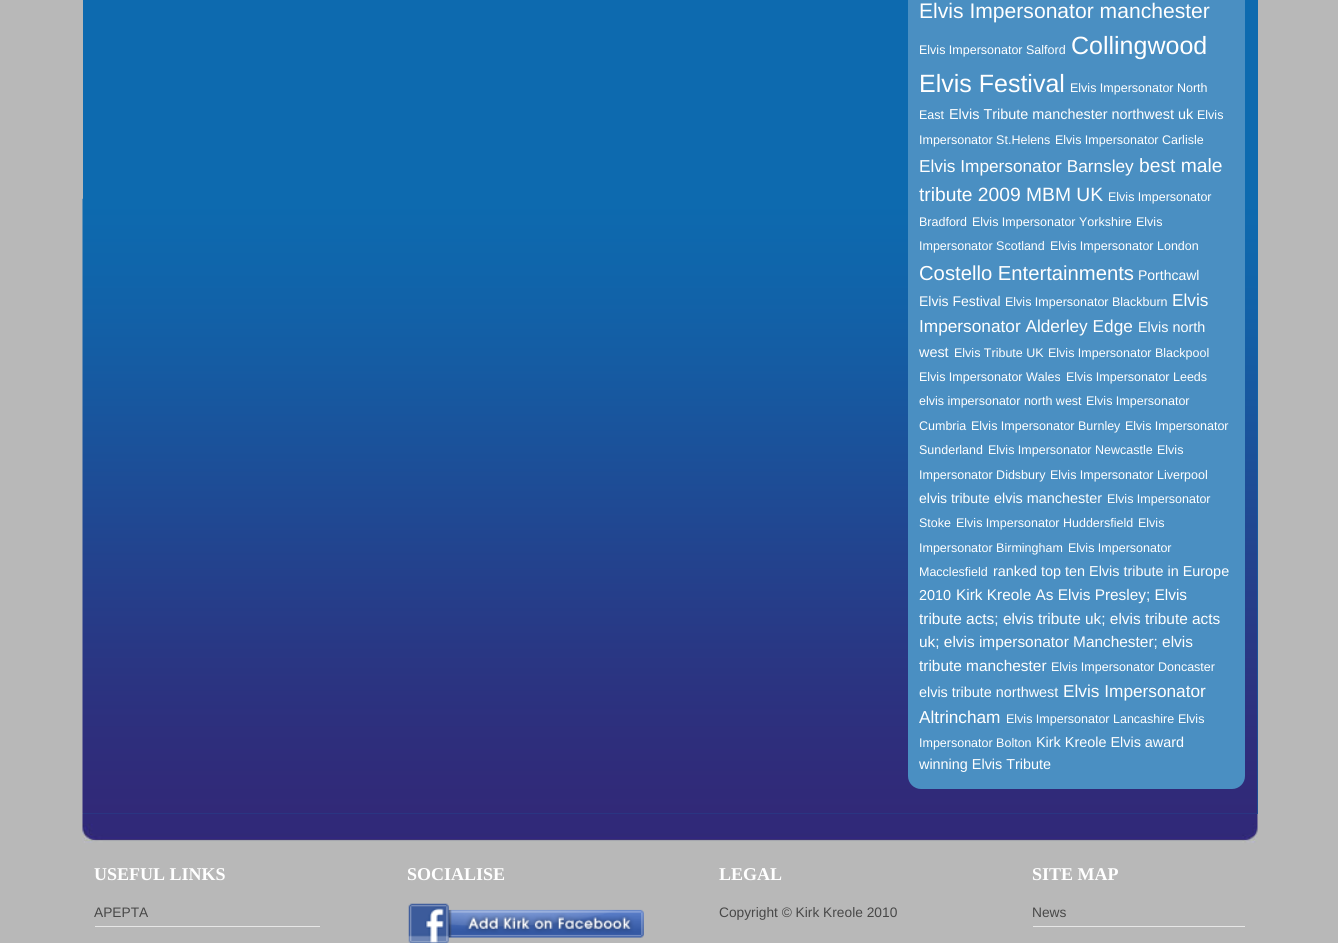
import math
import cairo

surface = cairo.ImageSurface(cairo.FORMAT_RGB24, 1338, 943)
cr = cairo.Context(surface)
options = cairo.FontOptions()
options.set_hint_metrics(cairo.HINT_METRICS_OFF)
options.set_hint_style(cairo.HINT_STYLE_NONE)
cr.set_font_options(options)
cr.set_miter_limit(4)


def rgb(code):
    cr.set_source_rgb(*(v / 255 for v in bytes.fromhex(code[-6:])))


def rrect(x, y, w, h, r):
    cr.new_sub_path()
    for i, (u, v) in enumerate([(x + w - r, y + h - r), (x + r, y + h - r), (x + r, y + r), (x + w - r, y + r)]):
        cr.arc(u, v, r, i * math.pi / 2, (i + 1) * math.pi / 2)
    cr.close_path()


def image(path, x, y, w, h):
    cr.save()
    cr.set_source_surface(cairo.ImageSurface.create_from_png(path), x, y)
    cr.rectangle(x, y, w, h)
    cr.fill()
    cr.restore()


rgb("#b8b8b8")
cr.paint()
rgb("#0d6aaf")
cr.rectangle(83, 0, 1175, 814)
cr.fill()
image("img/1.png", 82, 198, 1176, 616)
rgb("#4a8fc2")
rrect(908, -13, 337, 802, 13)
cr.fill()
image("img/2.png", 82, 813, 1176, 30)
rgb("#e7e7e7")
cr.rectangle(95, 926, 225, 1)
cr.fill()
image("img/3.png", 408, 903, 236, 40)
cr.rectangle(1033, 926, 212, 1)
cr.fill()
cr.select_font_face("Liberation Sans")
cr.set_font_size(21.1)
rgb("#ffffff")
cr.move_to(919, 18)
cr.show_text("Elvis Impersonator manchester")
cr.set_font_size(12.5)
cr.move_to(919, 54)
cr.show_text("Elvis Impersonator Salford")
cr.set_font_size(25)
cr.move_to(1071, 54)
cr.show_text("Collingwood")
cr.move_to(919, 92)
cr.show_text("Elvis Festival")
cr.set_font_size(12.5)
cr.move_to(1070, 92)
cr.show_text("Elvis Impersonator North")
cr.move_to(919, 119)
cr.show_text("East")
cr.set_font_size(14.4)
cr.move_to(949, 119)
cr.show_text("Elvis Tribute manchester northwest uk")
cr.set_font_size(12.5)
for x, y, s in [
    (1197, 119, "Elvis"),
    (919, 144, "Impersonator St.Helens"),
    (1055, 144, "Elvis Impersonator Carlisle"),
]:
    cr.move_to(x, y)
    cr.show_text(s)
cr.set_font_size(17.25)
cr.move_to(919, 172)
cr.show_text("Elvis Impersonator Barnsley")
cr.set_font_size(19.25)
cr.move_to(1139, 172)
cr.show_text("best male")
cr.move_to(919, 201)
cr.show_text("tribute 2009 MBM UK")
cr.set_font_size(12.5)
for x, y, s in [
    (1108, 201, "Elvis Impersonator"),
    (919, 226, "Bradford"),
    (972, 226, "Elvis Impersonator Yorkshire"),
    (1136, 226, "Elvis"),
    (919, 250, "Impersonator Scotland"),
    (1050, 250, "Elvis Impersonator London"),
]:
    cr.move_to(x, y)
    cr.show_text(s)
cr.set_font_size(20.25)
cr.move_to(919, 280)
cr.show_text("Costello Entertainments")
cr.set_font_size(14)
cr.move_to(1138, 280)
cr.show_text("Porthcawl")
cr.move_to(919, 306)
cr.show_text("Elvis Festival")
cr.set_font_size(12.5)
cr.move_to(1005, 306)
cr.show_text("Elvis Impersonator Blackburn")
cr.set_font_size(17.25)
cr.move_to(1172, 306)
cr.show_text("Elvis")
cr.move_to(919, 332)
cr.show_text("Impersonator Alderley Edge")
cr.set_font_size(14.4)
cr.move_to(1138, 332)
cr.show_text("Elvis north")
cr.move_to(919, 357)
cr.show_text("west")
cr.set_font_size(12.5)
for x, y, s in [
    (954, 357, "Elvis Tribute UK"),
    (1048, 357, "Elvis Impersonator Blackpool"),
    (919, 381, "Elvis Impersonator Wales"),
    (1066, 381, "Elvis Impersonator Leeds"),
    (919, 405, "elvis impersonator north west"),
    (1086, 405, "Elvis Impersonator"),
    (919, 430, "Cumbria"),
    (971, 430, "Elvis Impersonator Burnley"),
    (1125, 430, "Elvis Impersonator"),
    (919, 454, "Sunderland"),
    (988, 454, "Elvis Impersonator Newcastle"),
    (1157, 454, "Elvis"),
    (919, 479, "Impersonator Didsbury"),
    (1050, 479, "Elvis Impersonator Liverpool"),
]:
    cr.move_to(x, y)
    cr.show_text(s)
cr.set_font_size(14)
cr.move_to(919, 503)
cr.show_text("elvis tribute")
cr.set_font_size(14.4)
cr.move_to(994, 503)
cr.show_text("elvis manchester")
cr.set_font_size(12.5)
for x, y, s in [
    (1107, 503, "Elvis Impersonator"),
    (919, 527, "Stoke"),
    (956, 527, "Elvis Impersonator Huddersfield"),
    (1138, 527, "Elvis"),
    (919, 552, "Impersonator Birmingham"),
    (1068, 552, "Elvis Impersonator"),
    (919, 576, "Macclesfield"),
]:
    cr.move_to(x, y)
    cr.show_text(s)
cr.set_font_size(14.4)
cr.move_to(993, 576)
cr.show_text("ranked top ten Elvis tribute in Europe")
cr.move_to(919, 600)
cr.show_text("2010")
cr.set_font_size(15.4)
for x, y, s in [
    (956, 600, "Kirk Kreole As Elvis Presley; Elvis"),
    (919, 624, "tribute acts; elvis tribute uk; elvis tribute acts"),
    (919, 647, "uk; elvis impersonator Manchester; elvis"),
    (919, 671, "tribute manchester"),
]:
    cr.move_to(x, y)
    cr.show_text(s)
cr.set_font_size(12.5)
cr.move_to(1051, 671)
cr.show_text("Elvis Impersonator Doncaster")
cr.set_font_size(14.4)
cr.move_to(919, 697)
cr.show_text("elvis tribute northwest")
cr.set_font_size(17.25)
cr.move_to(1063, 697)
cr.show_text("Elvis Impersonator")
cr.move_to(919, 723)
cr.show_text("Altrincham")
cr.set_font_size(12.5)
for x, y, s in [
    (1006, 723, "Elvis Impersonator Lancashire"),
    (1178, 723, "Elvis"),
    (919, 747, "Impersonator Bolton"),
]:
    cr.move_to(x, y)
    cr.show_text(s)
cr.set_font_size(14.4)
cr.move_to(1036, 747)
cr.show_text("Kirk Kreole Elvis award")
cr.move_to(919, 769)
cr.show_text("winning Elvis Tribute")
cr.select_font_face("Liberation Serif", cairo.FONT_SLANT_NORMAL, cairo.FONT_WEIGHT_BOLD)
cr.set_font_size(18)
cr.move_to(94, 880)
cr.show_text("USEFUL LINKS")
cr.select_font_face("Liberation Sans")
cr.set_font_size(13.75)
rgb("#484848")
cr.move_to(94, 917)
cr.show_text("APEPTA")
cr.select_font_face("Liberation Serif", cairo.FONT_SLANT_NORMAL, cairo.FONT_WEIGHT_BOLD)
cr.set_font_size(18)
rgb("#ffffff")
cr.move_to(407, 880)
cr.show_text("SOCIALISE")
cr.move_to(719, 880)
cr.show_text("LEGAL")
cr.select_font_face("Liberation Sans")
cr.set_font_size(13.75)
rgb("#484848")
cr.move_to(719, 917)
cr.show_text("Copyright © Kirk Kreole 2010")
cr.select_font_face("Liberation Serif", cairo.FONT_SLANT_NORMAL, cairo.FONT_WEIGHT_BOLD)
cr.set_font_size(18)
rgb("#ffffff")
cr.move_to(1032, 880)
cr.show_text("SITE MAP")
cr.select_font_face("Liberation Sans")
cr.set_font_size(13.75)
rgb("#484848")
cr.move_to(1032, 917)
cr.show_text("News")
surface.write_to_png("page.png")
